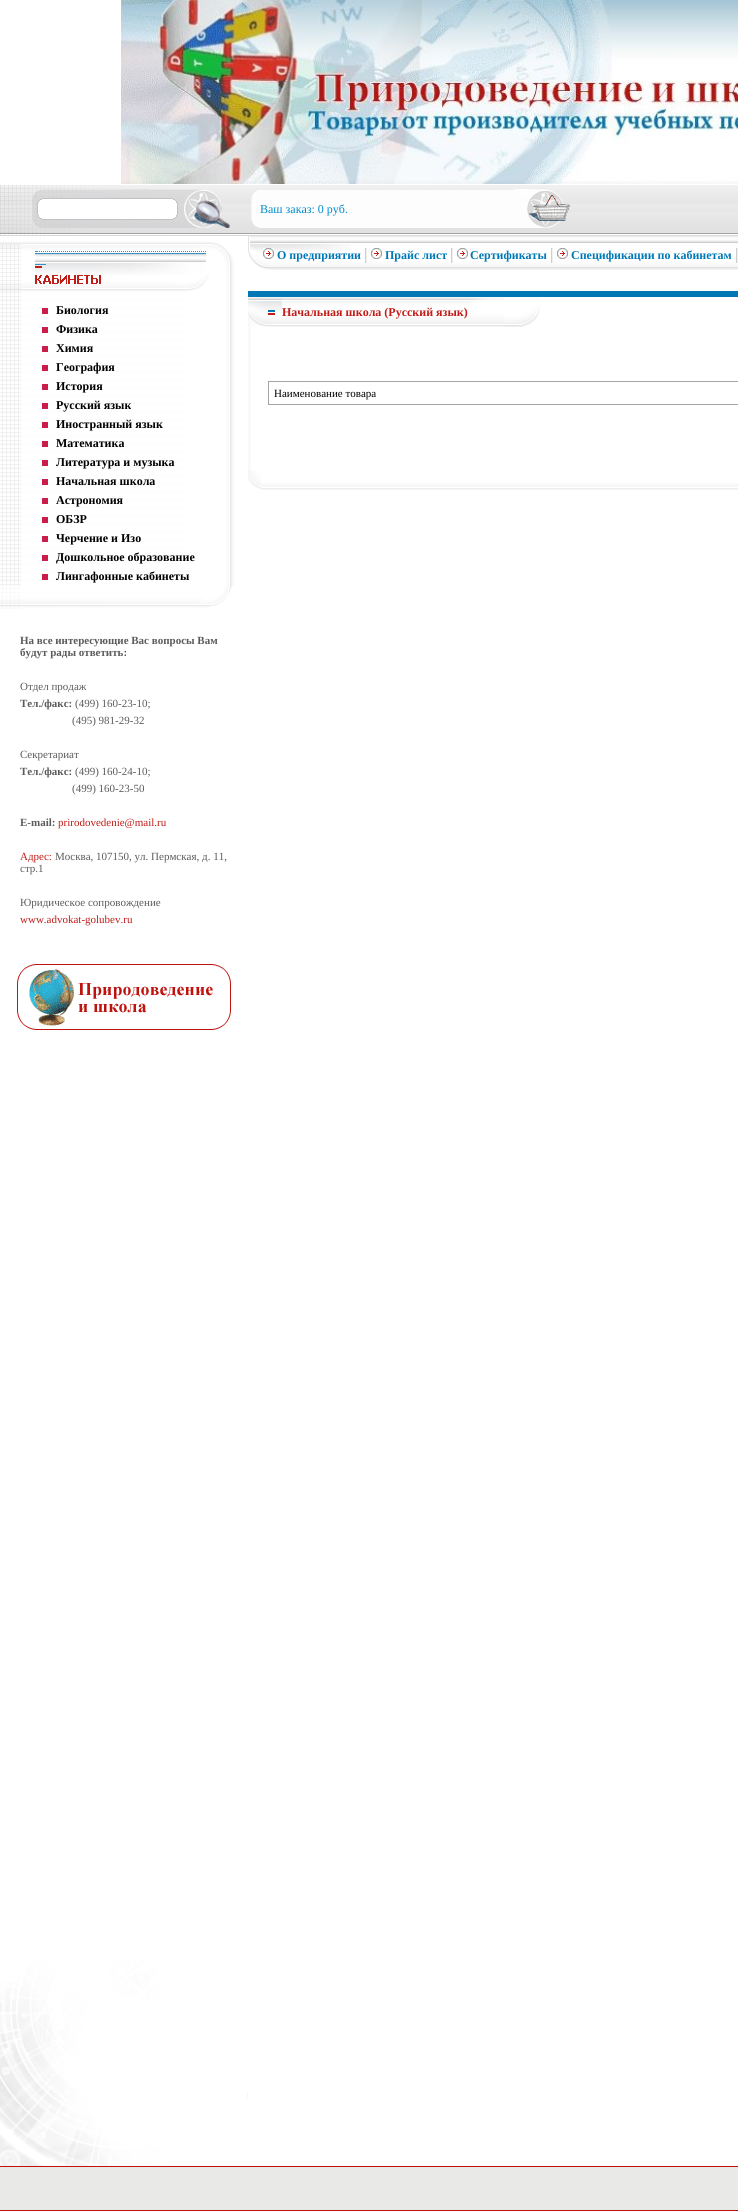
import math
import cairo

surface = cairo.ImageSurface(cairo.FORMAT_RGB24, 738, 2211)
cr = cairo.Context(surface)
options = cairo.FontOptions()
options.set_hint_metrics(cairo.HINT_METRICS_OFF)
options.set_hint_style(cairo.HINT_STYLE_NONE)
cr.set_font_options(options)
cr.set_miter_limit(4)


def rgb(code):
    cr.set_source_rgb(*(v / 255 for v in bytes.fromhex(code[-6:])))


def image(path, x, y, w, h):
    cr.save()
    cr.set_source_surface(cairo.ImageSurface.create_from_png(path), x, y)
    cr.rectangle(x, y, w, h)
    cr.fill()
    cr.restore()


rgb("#ffffff")
cr.paint()
image("img/1.png", 121, 0, 617, 184)
image("img/2.png", 230, 185, 508, 49)
image("img/3.png", 0, 185, 230, 50)
image("img/4.png", 251, 190, 9, 38)
rgb("#fdfdfd")
cr.rectangle(260, 190, 255, 38)
cr.fill()
image("img/5.png", 515, 189, 55, 39)
image("img/6.png", 0, 1961, 248, 205)
image("img/7.png", 0, 235, 248, 56)
image("img/8.png", 0, 291, 234, 295)
for x, y, w, h, color in [
    (42, 308, 6, 6, "#cc1d4a"),
    (42, 327, 6, 6, "#cc1d4a"),
    (42, 346, 6, 6, "#cc1d4a"),
    (42, 365, 6, 6, "#cc1d4a"),
    (42, 384, 6, 6, "#cc1d4a"),
    (42, 403, 6, 6, "#cc1d4a"),
    (42, 422, 6, 6, "#cc1d4a"),
    (42, 441, 6, 6, "#cc1d4a"),
    (42, 460, 6, 6, "#cc1d4a"),
    (42, 479, 6, 6, "#cc1d4a"),
    (42, 498, 6, 6, "#cc1d4a"),
    (42, 517, 6, 6, "#cc1d4a"),
    (42, 536, 6, 6, "#cc1d4a"),
    (42, 555, 6, 6, "#cc1d4a"),
    (42, 574, 6, 6, "#cc1d4a"),
]:
    rgb(color)
    cr.rectangle(x, y, w, h)
    cr.fill()
image("img/9.png", 0, 586, 232, 23)
image("img/10.png", 17, 964, 214, 66)
image("img/11.png", 29, 969, 45, 57)
image("img/12.png", 248, 235, 490, 35)
image("img/13.png", 248, 236, 102, 34)
image("img/14.png", 263, 248, 11, 11)
image("img/15.png", 365, 248, 2, 15)
image("img/14.png", 371, 248, 11, 11)
image("img/15.png", 451, 248, 2, 15)
image("img/14.png", 457, 248, 11, 11)
image("img/15.png", 551, 248, 2, 15)
image("img/14.png", 557, 248, 11, 11)
image("img/15.png", 736, 248, 2, 15)
rgb("#0078b6")
cr.rectangle(248, 291, 490, 6)
cr.fill()
image("img/16.png", 248, 297, 34, 30)
image("img/17.png", 282, 297, 186, 30)
image("img/18.png", 468, 297, 72, 30)
for x, y, w, h, color in [
    (248, 327, 3, 143, "#f9f9f9"),
    (268, 381, 470, 1, "#a5a5a5"),
    (268, 381, 1, 24, "#a5a5a5"),
    (269, 404, 469, 1, "#a5a5a5"),
]:
    rgb(color)
    cr.rectangle(x, y, w, h)
    cr.fill()
image("img/19.png", 261, 483, 477, 7)
image("img/20.png", 248, 470, 13, 20)
for x, y, w, h, color in [
    (0, 2167, 738, 43, "#e9e9e8"),
    (0, 2166, 738, 1, "#bd120d"),
    (0, 2210, 738, 1, "#bd120d"),
]:
    rgb(color)
    cr.rectangle(x, y, w, h)
    cr.fill()
cr.select_font_face("Liberation Serif")
cr.set_font_size(12)
rgb("#008cce")
cr.move_to(260, 213)
cr.show_text("Ваш заказ: 0 руб.")
cr.select_font_face("Liberation Serif", cairo.FONT_SLANT_NORMAL, cairo.FONT_WEIGHT_BOLD)
rgb("#000000")
for x, y, s in [
    (56, 314, "Биология"),
    (56, 333, "Физика"),
    (56, 352, "Химия"),
    (56, 371, "География"),
    (56, 390, "История"),
    (56, 409, "Русский язык"),
    (56, 428, "Иностранный язык"),
    (56, 447, "Математика"),
    (56, 466, "Литература и музыка"),
    (56, 485, "Начальная школа"),
    (56, 504, "Астрономия"),
    (56, 523, "ОБЗР"),
    (56, 542, "Черчение и Изо"),
    (56, 561, "Дошкольное образование"),
    (56, 580, "Лингафонные кабинеты"),
]:
    cr.move_to(x, y)
    cr.show_text(s)
cr.set_font_size(11)
rgb("#5b5b5b")
cr.move_to(20, 644)
cr.show_text("На все интересующие Вас вопросы Вам")
cr.move_to(20, 656)
cr.show_text("будут рады ответить:")
cr.select_font_face("Liberation Serif")
cr.move_to(20, 690)
cr.show_text("Отдел продаж")
cr.select_font_face("Liberation Serif", cairo.FONT_SLANT_NORMAL, cairo.FONT_WEIGHT_BOLD)
cr.move_to(20, 707)
cr.show_text("Тел./факс:")
cr.select_font_face("Liberation Serif")
for x, y, s in [
    (75, 707, "(499) 160-23-10;"),
    (72, 724, "(495) 981-29-32"),
    (20, 758, "Секретариат"),
]:
    cr.move_to(x, y)
    cr.show_text(s)
cr.select_font_face("Liberation Serif", cairo.FONT_SLANT_NORMAL, cairo.FONT_WEIGHT_BOLD)
cr.move_to(20, 775)
cr.show_text("Тел./факс:")
cr.select_font_face("Liberation Serif")
cr.move_to(75, 775)
cr.show_text("(499) 160-24-10;")
cr.move_to(72, 792)
cr.show_text("(499) 160-23-50")
cr.select_font_face("Liberation Serif", cairo.FONT_SLANT_NORMAL, cairo.FONT_WEIGHT_BOLD)
cr.move_to(20, 826)
cr.show_text("E-mail:")
cr.select_font_face("Liberation Serif")
rgb("#c11c17")
cr.move_to(58, 826)
cr.show_text("prirodovedenie@mail.ru")
cr.move_to(20, 860)
cr.show_text("Адрес:")
rgb("#5b5b5b")
for x, y, s in [
    (55, 860, "Москва, 107150, ул. Пермская, д. 11,"),
    (20, 872, "стр.1"),
    (20, 906, "Юридическое сопровождение"),
]:
    cr.move_to(x, y)
    cr.show_text(s)
rgb("#c11c17")
cr.move_to(20, 923)
cr.show_text("www.advokat-golubev.ru")
cr.select_font_face("Liberation Serif", cairo.FONT_SLANT_NORMAL, cairo.FONT_WEIGHT_BOLD)
cr.set_font_size(12)
rgb("#0078b6")
for x, y, s in [
    (277, 259, "О предприятии"),
    (385, 259, "Прайс лист"),
    (470, 259, "Сертификаты"),
    (571, 259, "Спецификации по кабинетам"),
]:
    cr.move_to(x, y)
    cr.show_text(s)
rgb("#c11c17")
cr.move_to(282, 316)
cr.show_text("Начальная школа (Русский язык)")
cr.select_font_face("Liberation Serif")
cr.set_font_size(11)
rgb("#000000")
cr.move_to(274, 397)
cr.show_text("Наименование товара")
surface.write_to_png("page.png")
